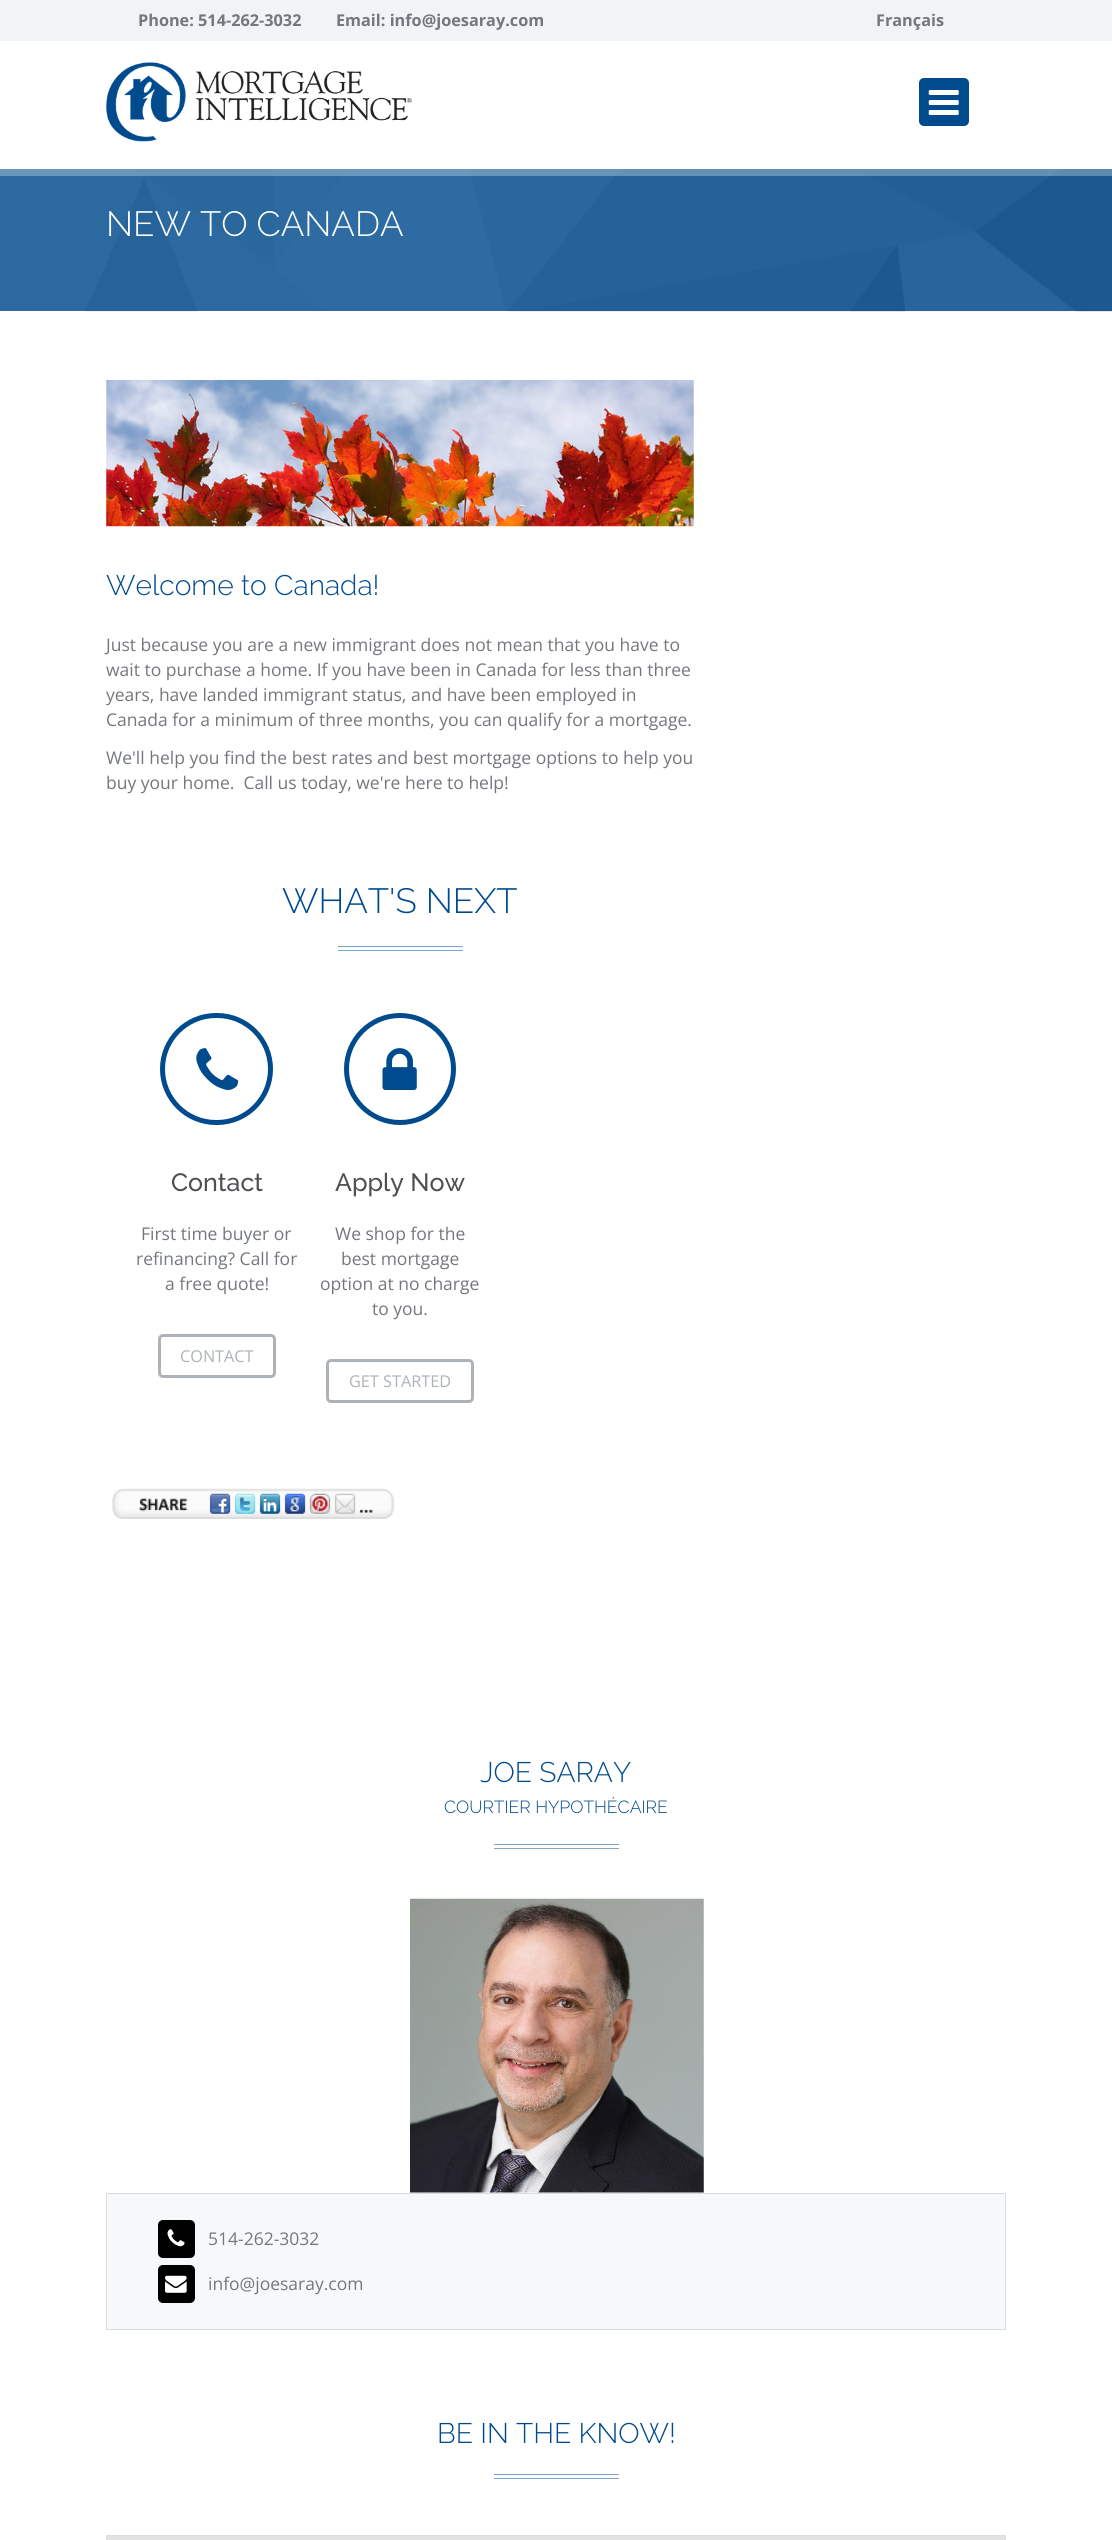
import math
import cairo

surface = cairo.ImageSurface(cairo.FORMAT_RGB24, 1112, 2540)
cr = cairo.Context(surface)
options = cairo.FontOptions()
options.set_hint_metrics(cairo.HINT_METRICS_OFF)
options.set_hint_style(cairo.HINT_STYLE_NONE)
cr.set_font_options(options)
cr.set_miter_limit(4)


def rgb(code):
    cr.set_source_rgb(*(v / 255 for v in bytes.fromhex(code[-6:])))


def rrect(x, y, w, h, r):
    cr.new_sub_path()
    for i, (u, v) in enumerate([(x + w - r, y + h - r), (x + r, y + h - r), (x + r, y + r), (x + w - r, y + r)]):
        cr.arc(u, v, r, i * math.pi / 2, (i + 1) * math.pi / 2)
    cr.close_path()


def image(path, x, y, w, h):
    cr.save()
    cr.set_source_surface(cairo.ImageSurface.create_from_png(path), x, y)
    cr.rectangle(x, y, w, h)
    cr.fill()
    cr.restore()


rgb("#ffffff")
cr.paint()
rgb("#f1f3f6")
cr.rectangle(0, 0, 1112, 41)
cr.fill()
image("img/1.png", 106, 62, 306, 80)
rgb("#004b8d")
rrect(919, 78, 50, 48, 5)
cr.fill()
image("img/2.png", 928, 90, 31, 25)
image("img/3.png", 0, 169, 1112, 143)
cr.set_source_rgba(1, 1, 1, 0.3)
cr.rectangle(0, 169, 1112, 7)
cr.fill()
image("img/4.png", 106, 380, 588, 147)
rgb("#80a5c6")
cr.rectangle(338, 946, 125, 1)
cr.fill()
cr.rectangle(338, 950, 125, 1)
cr.fill()
rrect(162.5, 1015.5, 108, 107, 53.5)
rgb("#004b8d")
cr.set_line_width(5)
cr.stroke()
image("img/5.png", 196, 1048, 43, 42)
rrect(159.5, 1335.5, 115, 41, 3.5)
rgb("#adb2b6")
cr.set_line_width(3)
cr.stroke()
cr.arc(400, 1069, 53.5, 0, 2 * math.pi)
rgb("#004b8d")
cr.set_line_width(5)
cr.stroke()
image("img/6.png", 382, 1048, 35, 42)
rrect(327.5, 1360.5, 145, 41, 3.5)
rgb("#adb2b6")
cr.set_line_width(3)
cr.stroke()
image("img/7.png", 112, 1488, 282, 31)
rgb("#80a5c6")
cr.rectangle(494, 1844, 125, 1)
cr.fill()
cr.rectangle(494, 1848, 125, 1)
cr.fill()
image("img/8.png", 410, 1898, 294, 295)
rgb("#f7f8fa")
cr.rectangle(106.5, 2193.5, 899, 136)
cr.fill_preserve()
rgb("#dadbdf")
cr.set_line_width(1)
cr.stroke()
rgb("#000000")
rrect(158, 2220, 37, 38, 5)
cr.fill()
image("img/9.png", 167, 2229, 18, 18)
rrect(158, 2265, 37, 38, 5)
cr.fill()
image("img/10.png", 165, 2275, 22, 18)
rgb("#80a5c6")
cr.rectangle(494, 2474, 125, 1)
cr.fill()
cr.rectangle(494, 2478, 125, 1)
cr.fill()
rgb("#e2e2e2")
cr.rectangle(106.5, 2535.5, 899, 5)
cr.fill_preserve()
rgb("#dedede")
cr.stroke()
cr.select_font_face("Open Sans", cairo.FONT_SLANT_NORMAL, cairo.FONT_WEIGHT_BOLD)
cr.set_font_size(16.25)
rgb("#74777c")
for x, y, s in [
    (138, 26, "Phone: 514-262-3032"),
    (336, 26, "Email: info@joesaray.com"),
    (876, 26, "Français"),
]:
    cr.move_to(x, y)
    cr.show_text(s)
cr.select_font_face("Raleway Light")
cr.set_font_size(35)
rgb("#ffffff")
cr.move_to(106, 236)
cr.show_text("NEW TO CANADA")
cr.set_font_size(28.25)
rgb("#004b8d")
cr.move_to(106, 595)
cr.show_text("Welcome to Canada!")
cr.select_font_face("Open Sans")
cr.set_font_size(17.5)
rgb("#74777c")
for x, y, s in [
    (106, 651, "Just because you are a new immigrant does not mean that you have to"),
    (106, 676, "wait to purchase a home. If you have been in Canada for less than three"),
    (106, 701, "years, have landed immigrant status, and have been employed in"),
    (106, 726, "Canada for a minimum of three months, you can qualify for a mortgage."),
    (106, 764, "We'll help you find the best rates and best mortgage options to help you"),
    (106, 789, "buy your home.  Call us today, we're here to help!"),
]:
    cr.move_to(x, y)
    cr.show_text(s)
cr.select_font_face("Raleway Light")
cr.set_font_size(35)
rgb("#004b8d")
cr.move_to(282, 913)
cr.show_text("WHAT'S NEXT")
cr.select_font_face("Raleway Medium")
cr.set_font_size(25)
rgb("#4d4f52")
cr.move_to(171, 1191)
cr.show_text("Contact")
cr.select_font_face("Open Sans")
cr.set_font_size(17.5)
rgb("#74777c")
for x, y, s in [
    (141, 1240, "First time buyer or"),
    (136, 1265, "refinancing? Call for"),
    (165, 1290, "a free quote!"),
]:
    cr.move_to(x, y)
    cr.show_text(s)
cr.set_font_size(16.25)
rgb("#adb2b6")
cr.move_to(180, 1362)
cr.show_text("CONTACT")
cr.select_font_face("Raleway Medium")
cr.set_font_size(25)
rgb("#4d4f52")
cr.move_to(335, 1191)
cr.show_text("Apply Now")
cr.select_font_face("Open Sans")
cr.set_font_size(17.5)
rgb("#74777c")
for x, y, s in [
    (335, 1240, "We shop for the"),
    (341, 1265, "best mortgage"),
    (320, 1290, "option at no charge"),
    (372, 1315, "to you."),
]:
    cr.move_to(x, y)
    cr.show_text(s)
cr.set_font_size(16.25)
rgb("#adb2b6")
cr.move_to(349, 1387)
cr.show_text("GET STARTED")
cr.select_font_face("Raleway Light")
cr.set_font_size(28.25)
rgb("#004b8d")
cr.move_to(480, 1782)
cr.show_text("JOE SARAY")
cr.set_font_size(17.5)
cr.move_to(444, 1813)
cr.show_text("COURTIER HYPOTHÉCAIRE")
cr.select_font_face("Open Sans")
rgb("#74777c")
cr.move_to(208, 2245)
cr.show_text("514-262-3032")
cr.move_to(208, 2290)
cr.show_text("info@joesaray.com")
cr.select_font_face("Raleway Light")
cr.set_font_size(28.25)
rgb("#004b8d")
cr.move_to(437, 2443)
cr.show_text("BE IN THE KNOW!")
surface.write_to_png("page.png")
